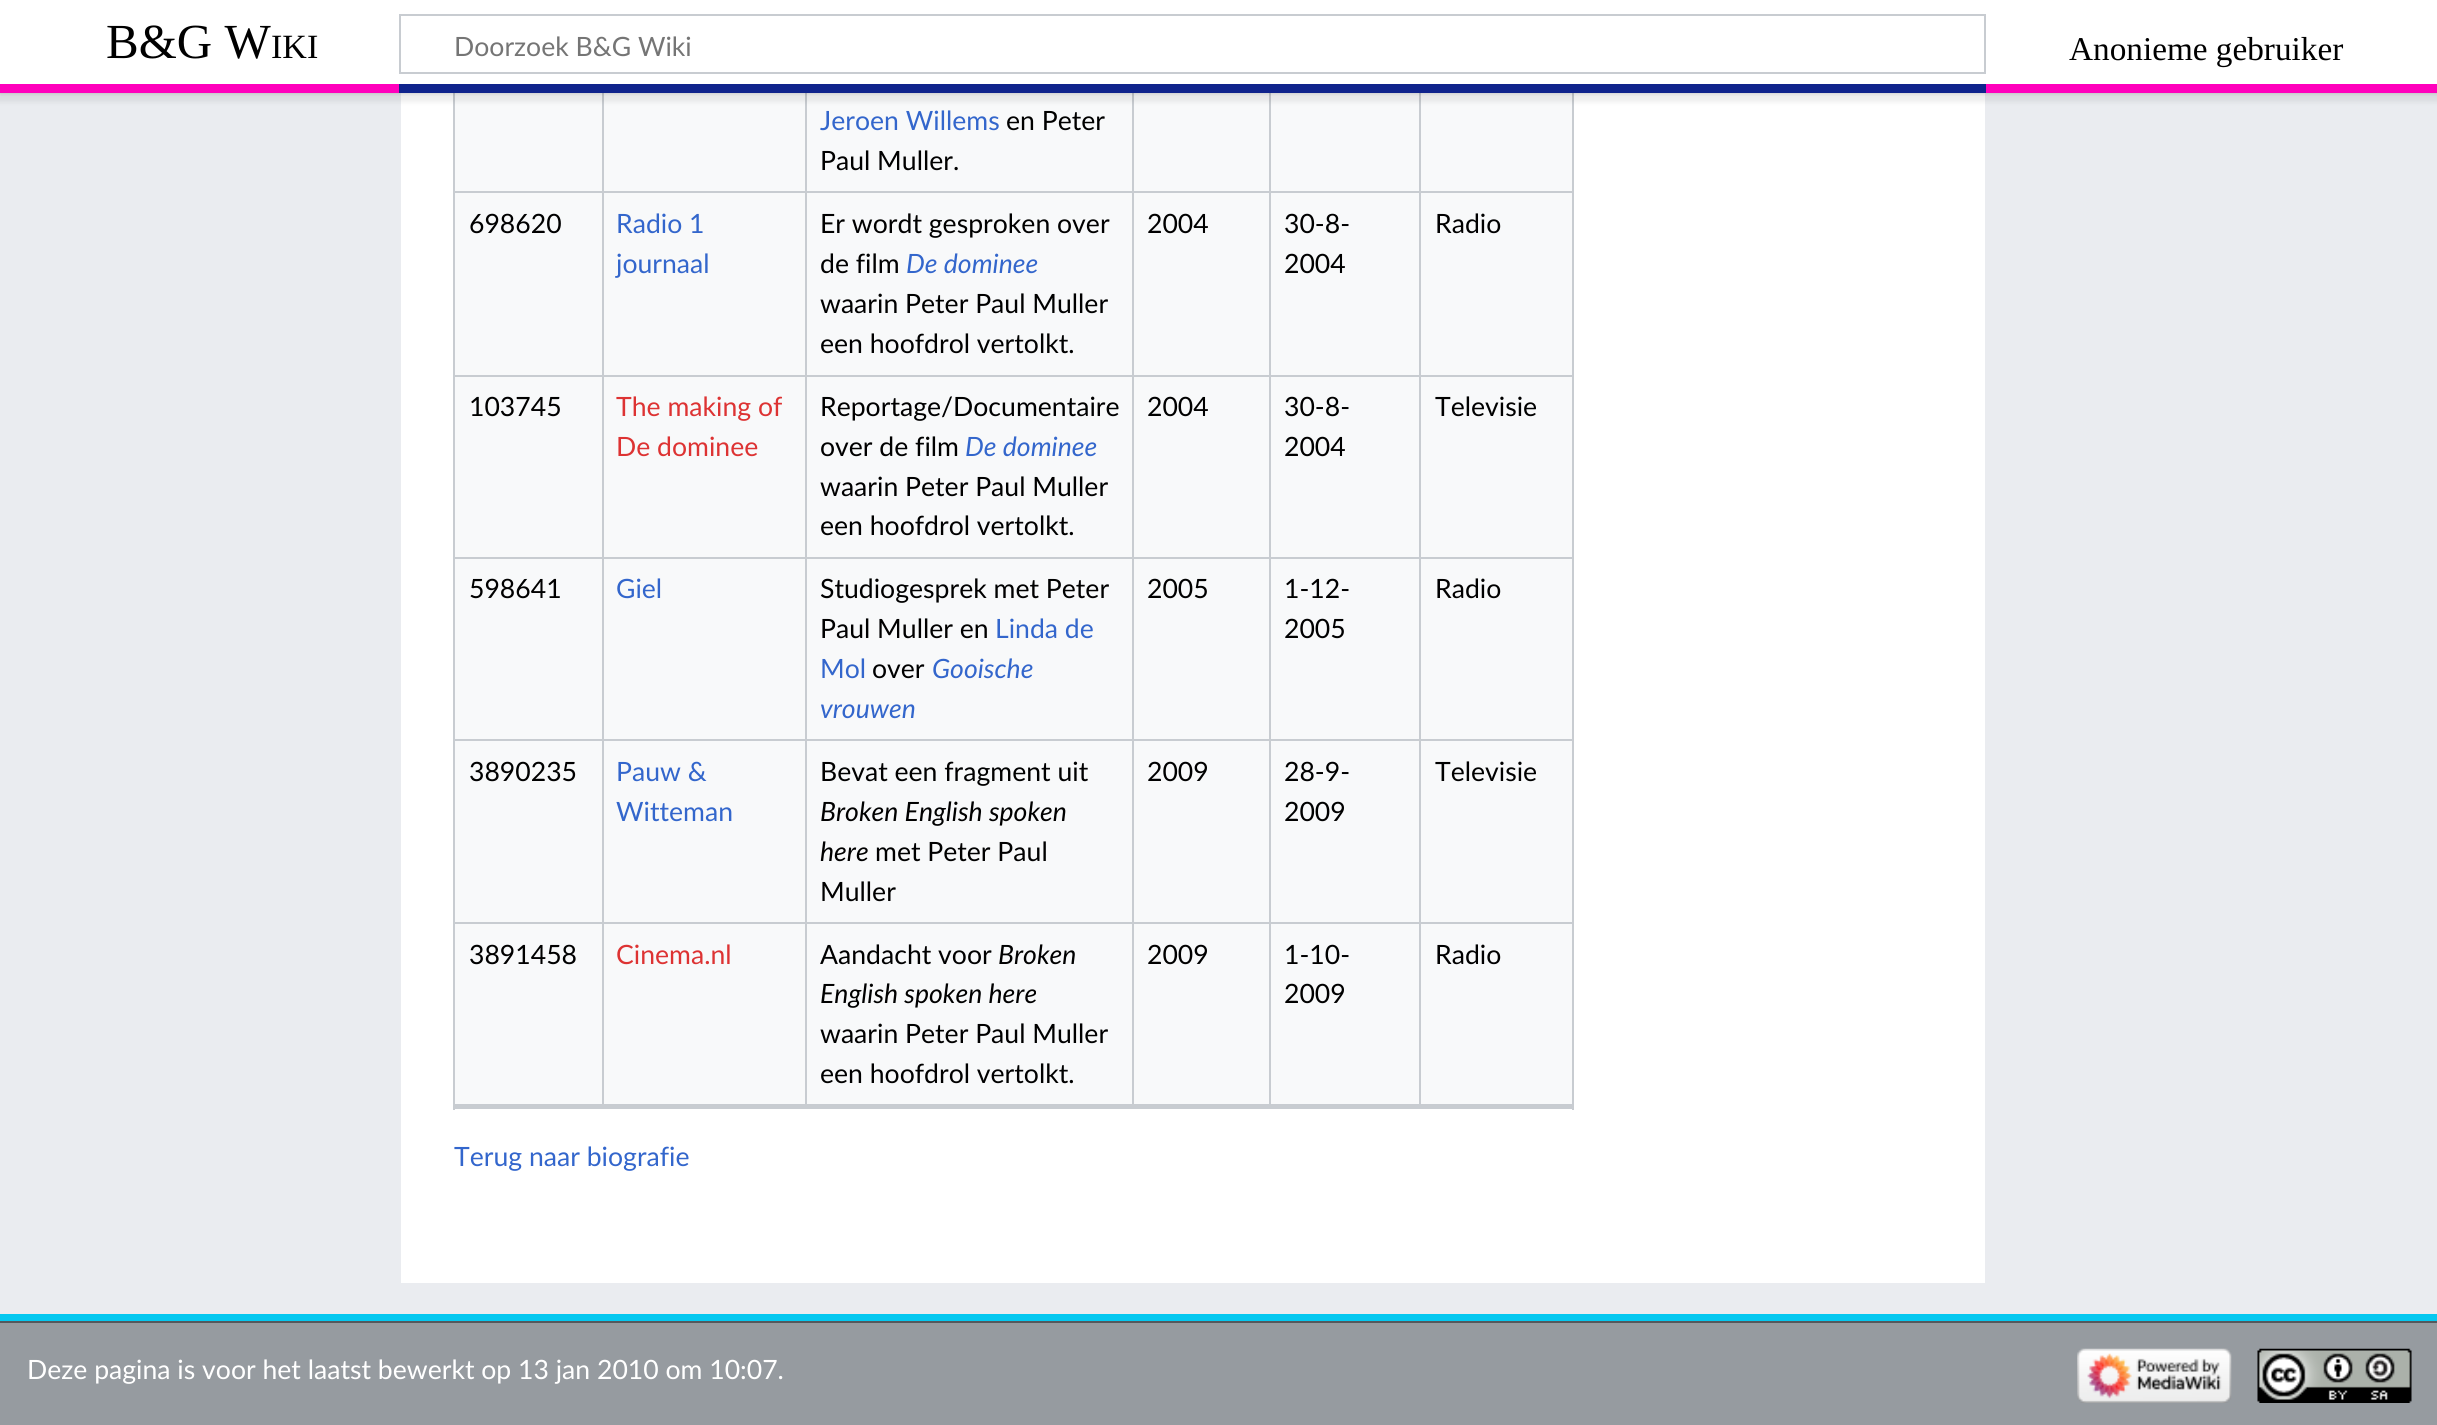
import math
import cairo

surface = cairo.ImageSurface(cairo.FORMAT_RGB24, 2437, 1425)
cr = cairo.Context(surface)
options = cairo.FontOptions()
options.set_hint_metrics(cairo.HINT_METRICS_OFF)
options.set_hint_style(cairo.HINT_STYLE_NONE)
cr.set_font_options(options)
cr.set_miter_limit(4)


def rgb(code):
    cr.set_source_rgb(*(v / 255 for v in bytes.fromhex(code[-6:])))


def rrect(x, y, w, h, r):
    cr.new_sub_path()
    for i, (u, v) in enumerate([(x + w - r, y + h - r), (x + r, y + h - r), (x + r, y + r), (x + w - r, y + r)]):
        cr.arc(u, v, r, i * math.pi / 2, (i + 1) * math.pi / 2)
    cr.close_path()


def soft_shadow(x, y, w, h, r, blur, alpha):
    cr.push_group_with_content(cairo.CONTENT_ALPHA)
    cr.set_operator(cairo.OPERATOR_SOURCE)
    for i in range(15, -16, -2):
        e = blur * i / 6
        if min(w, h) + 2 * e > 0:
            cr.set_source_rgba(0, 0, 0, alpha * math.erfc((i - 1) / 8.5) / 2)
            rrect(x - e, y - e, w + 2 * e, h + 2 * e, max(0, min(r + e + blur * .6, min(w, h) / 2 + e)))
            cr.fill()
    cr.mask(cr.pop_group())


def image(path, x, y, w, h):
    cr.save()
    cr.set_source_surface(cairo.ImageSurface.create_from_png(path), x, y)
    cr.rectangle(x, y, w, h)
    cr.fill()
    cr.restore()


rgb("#969ba0")
cr.paint()
for x, y, w, h, color in [
    (0, 93, 2437, 1221, "#eaecf0"),
    (401, 93, 1584, 1190, "#ffffff"),
    (455, 93, 1117, 1011, "#f8f9fa"),
    (1572, 93, 2, 1017, "#c8ccd1"),
    (453, 93, 2, 1017, "#c8ccd1"),
    (1419, 191, 154, 2, "#c8ccd1"),
    (1419, 375, 154, 2, "#c8ccd1"),
    (1419, 557, 154, 2, "#c8ccd1"),
    (1419, 739, 154, 2, "#c8ccd1"),
    (1419, 922, 154, 2, "#c8ccd1"),
    (1419, 922, 2, 186, "#c8ccd1"),
    (1269, 922, 152, 2, "#c8ccd1"),
    (1419, 739, 2, 185, "#c8ccd1"),
    (1269, 739, 152, 2, "#c8ccd1"),
    (1419, 557, 2, 183, "#c8ccd1"),
    (1269, 557, 152, 2, "#c8ccd1"),
    (1419, 375, 2, 183, "#c8ccd1"),
    (1269, 375, 152, 2, "#c8ccd1"),
    (1419, 191, 2, 185, "#c8ccd1"),
    (1269, 191, 152, 2, "#c8ccd1"),
    (1269, 922, 2, 186, "#c8ccd1"),
    (1132, 922, 139, 2, "#c8ccd1"),
    (1269, 739, 2, 185, "#c8ccd1"),
    (1132, 739, 139, 2, "#c8ccd1"),
    (1269, 557, 2, 183, "#c8ccd1"),
    (1132, 557, 139, 2, "#c8ccd1"),
    (1269, 375, 2, 183, "#c8ccd1"),
    (1132, 375, 139, 2, "#c8ccd1"),
    (1269, 191, 2, 185, "#c8ccd1"),
    (1132, 191, 139, 2, "#c8ccd1"),
    (1132, 922, 2, 186, "#c8ccd1"),
    (805, 922, 329, 2, "#c8ccd1"),
    (1132, 739, 2, 185, "#c8ccd1"),
    (805, 739, 329, 2, "#c8ccd1"),
    (1132, 557, 2, 183, "#c8ccd1"),
    (805, 557, 329, 2, "#c8ccd1"),
    (1132, 375, 2, 183, "#c8ccd1"),
    (805, 375, 329, 2, "#c8ccd1"),
    (1132, 191, 2, 185, "#c8ccd1"),
    (805, 191, 329, 2, "#c8ccd1"),
    (805, 922, 2, 186, "#c8ccd1"),
    (602, 922, 205, 2, "#c8ccd1"),
    (805, 739, 2, 185, "#c8ccd1"),
    (602, 739, 205, 2, "#c8ccd1"),
    (805, 557, 2, 183, "#c8ccd1"),
    (602, 557, 205, 2, "#c8ccd1"),
    (805, 375, 2, 183, "#c8ccd1"),
    (602, 375, 205, 2, "#c8ccd1"),
    (805, 191, 2, 185, "#c8ccd1"),
    (602, 191, 205, 2, "#c8ccd1"),
    (602, 922, 2, 186, "#c8ccd1"),
    (453, 922, 151, 2, "#c8ccd1"),
    (602, 739, 2, 185, "#c8ccd1"),
    (453, 739, 151, 2, "#c8ccd1"),
    (602, 557, 2, 183, "#c8ccd1"),
    (453, 557, 151, 2, "#c8ccd1"),
    (602, 375, 2, 183, "#c8ccd1"),
    (453, 375, 151, 2, "#c8ccd1"),
    (602, 191, 2, 185, "#c8ccd1"),
    (453, 191, 151, 2, "#c8ccd1"),
    (602, 93, 2, 100, "#c8ccd1"),
    (805, 93, 2, 100, "#c8ccd1"),
    (1132, 93, 2, 100, "#c8ccd1"),
    (1269, 93, 2, 100, "#c8ccd1"),
    (1419, 93, 2, 100, "#c8ccd1"),
]:
    rgb(color)
    cr.rectangle(x, y, w, h)
    cr.fill()
rgb("#000000")
soft_shadow(0, 84, 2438, 9, 0, 2, 0.2)
soft_shadow(-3, 86, 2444, 16, 0, 2.5, 0.07)
rgb("#ffffff")
cr.rectangle(0, 0, 2437, 84)
cr.fill()
cr.rectangle(400, 15, 1585, 58)
rgb("#c8ccd1")
cr.stroke()
for x, y, w, h, color in [
    (0, 84, 399, 9, "#ff00bc"),
    (399, 84, 1587, 9, "#0f238c"),
    (1986, 84, 451, 9, "#ff00bc"),
    (0, 1314, 2437, 7, "#05c8f0"),
    (453, 1104, 1120, 5, "#c8ccd1"),
    (0, 1321, 2437, 2, "#54595d"),
]:
    rgb(color)
    cr.rectangle(x, y, w, h)
    cr.fill()
image("img/1.png", 2077, 1348, 155, 55)
image("img/2.png", 2257, 1348, 155, 55)
cr.select_font_face("Liberation Serif")
cr.set_font_size(49)
rgb("#000000")
cr.move_to(106, 58)
cr.show_text("B&G W")
cr.set_font_size(34)
cr.move_to(271, 58)
cr.show_text("IKI")
cr.select_font_face("Lato")
cr.set_font_size(26.6)
rgb("#757575")
cr.move_to(454, 56)
cr.show_text("Doorzoek B&G Wiki")
cr.save()
cr.rectangle(2069, 30, 274, 38)
cr.clip()
cr.select_font_face("Liberation Serif")
cr.set_font_size(33.25)
rgb("#000000")
cr.move_to(2069, 60)
cr.show_text("Anonieme gebruiker")
cr.restore()
rgb("#3366cc")
cr.move_to(820, 130)
cr.show_text("Jeroen Willems")
rgb("#000000")
for x, y, s in [
    (1006, 130, "en Peter"),
    (820, 170, "Paul Muller."),
    (469, 233, "698620"),
]:
    cr.move_to(x, y)
    cr.show_text(s)
rgb("#3366cc")
cr.move_to(616, 233)
cr.show_text("Radio 1")
cr.move_to(616, 273)
cr.show_text("journaal")
rgb("#000000")
cr.move_to(820, 233)
cr.show_text("Er wordt gesproken over")
cr.move_to(820, 273)
cr.show_text("de film")
cr.select_font_face("Lato", cairo.FONT_SLANT_ITALIC)
rgb("#3366cc")
cr.move_to(906, 273)
cr.show_text("De dominee")
cr.select_font_face("Lato")
rgb("#000000")
for x, y, s in [
    (820, 313, "waarin Peter Paul Muller"),
    (820, 353, "een hoofdrol vertolkt."),
    (1147, 233, "2004"),
    (1284, 233, "30-8-"),
    (1284, 273, "2004"),
    (1435, 233, "Radio"),
    (469, 416, "103745"),
]:
    cr.move_to(x, y)
    cr.show_text(s)
rgb("#dd3333")
cr.move_to(616, 416)
cr.show_text("The making of")
cr.move_to(616, 456)
cr.show_text("De dominee")
rgb("#000000")
cr.move_to(820, 416)
cr.show_text("Reportage/Documentaire")
cr.move_to(820, 456)
cr.show_text("over de film")
cr.select_font_face("Lato", cairo.FONT_SLANT_ITALIC)
rgb("#3366cc")
cr.move_to(965, 456)
cr.show_text("De dominee")
cr.select_font_face("Lato")
rgb("#000000")
for x, y, s in [
    (820, 496, "waarin Peter Paul Muller"),
    (820, 535, "een hoofdrol vertolkt."),
    (1147, 416, "2004"),
    (1284, 416, "30-8-"),
    (1284, 456, "2004"),
    (1435, 416, "Televisie"),
    (469, 598, "598641"),
]:
    cr.move_to(x, y)
    cr.show_text(s)
rgb("#3366cc")
cr.move_to(616, 598)
cr.show_text("Giel")
rgb("#000000")
cr.move_to(820, 598)
cr.show_text("Studiogesprek met Peter")
cr.move_to(820, 638)
cr.show_text("Paul Muller en")
rgb("#3366cc")
cr.move_to(995, 638)
cr.show_text("Linda de")
cr.move_to(820, 678)
cr.show_text("Mol")
rgb("#000000")
cr.move_to(872, 678)
cr.show_text("over")
cr.select_font_face("Lato", cairo.FONT_SLANT_ITALIC)
rgb("#3366cc")
cr.move_to(932, 678)
cr.show_text("Gooische")
cr.move_to(820, 718)
cr.show_text("vrouwen")
cr.select_font_face("Lato")
rgb("#000000")
for x, y, s in [
    (1147, 598, "2005"),
    (1284, 598, "1-12-"),
    (1284, 638, "2005"),
    (1435, 598, "Radio"),
    (469, 781, "3890235"),
]:
    cr.move_to(x, y)
    cr.show_text(s)
rgb("#3366cc")
cr.move_to(616, 781)
cr.show_text("Pauw &")
cr.move_to(616, 821)
cr.show_text("Witteman")
rgb("#000000")
cr.move_to(820, 781)
cr.show_text("Bevat een fragment uit")
cr.select_font_face("Lato", cairo.FONT_SLANT_ITALIC)
cr.move_to(820, 821)
cr.show_text("Broken English spoken")
cr.move_to(820, 861)
cr.show_text("here")
cr.select_font_face("Lato")
for x, y, s in [
    (875, 861, "met Peter Paul"),
    (820, 901, "Muller"),
    (1147, 781, "2009"),
    (1284, 781, "28-9-"),
    (1284, 821, "2009"),
    (1435, 781, "Televisie"),
    (469, 964, "3891458"),
]:
    cr.move_to(x, y)
    cr.show_text(s)
rgb("#dd3333")
cr.move_to(616, 964)
cr.show_text("Cinema.nl")
rgb("#000000")
cr.move_to(820, 964)
cr.show_text("Aandacht voor")
cr.select_font_face("Lato", cairo.FONT_SLANT_ITALIC)
cr.move_to(998, 964)
cr.show_text("Broken")
cr.move_to(820, 1003)
cr.show_text("English spoken here")
cr.select_font_face("Lato")
for x, y, s in [
    (820, 1043, "waarin Peter Paul Muller"),
    (820, 1083, "een hoofdrol vertolkt."),
    (1147, 964, "2009"),
    (1284, 964, "1-10-"),
    (1284, 1003, "2009"),
    (1435, 964, "Radio"),
]:
    cr.move_to(x, y)
    cr.show_text(s)
rgb("#3366cc")
cr.move_to(454, 1166)
cr.show_text("Terug naar biografie")
rgb("#ffffff")
cr.move_to(27, 1379)
cr.show_text("Deze pagina is voor het laatst bewerkt op 13 jan 2010 om 10:07.")
surface.write_to_png("page.png")
